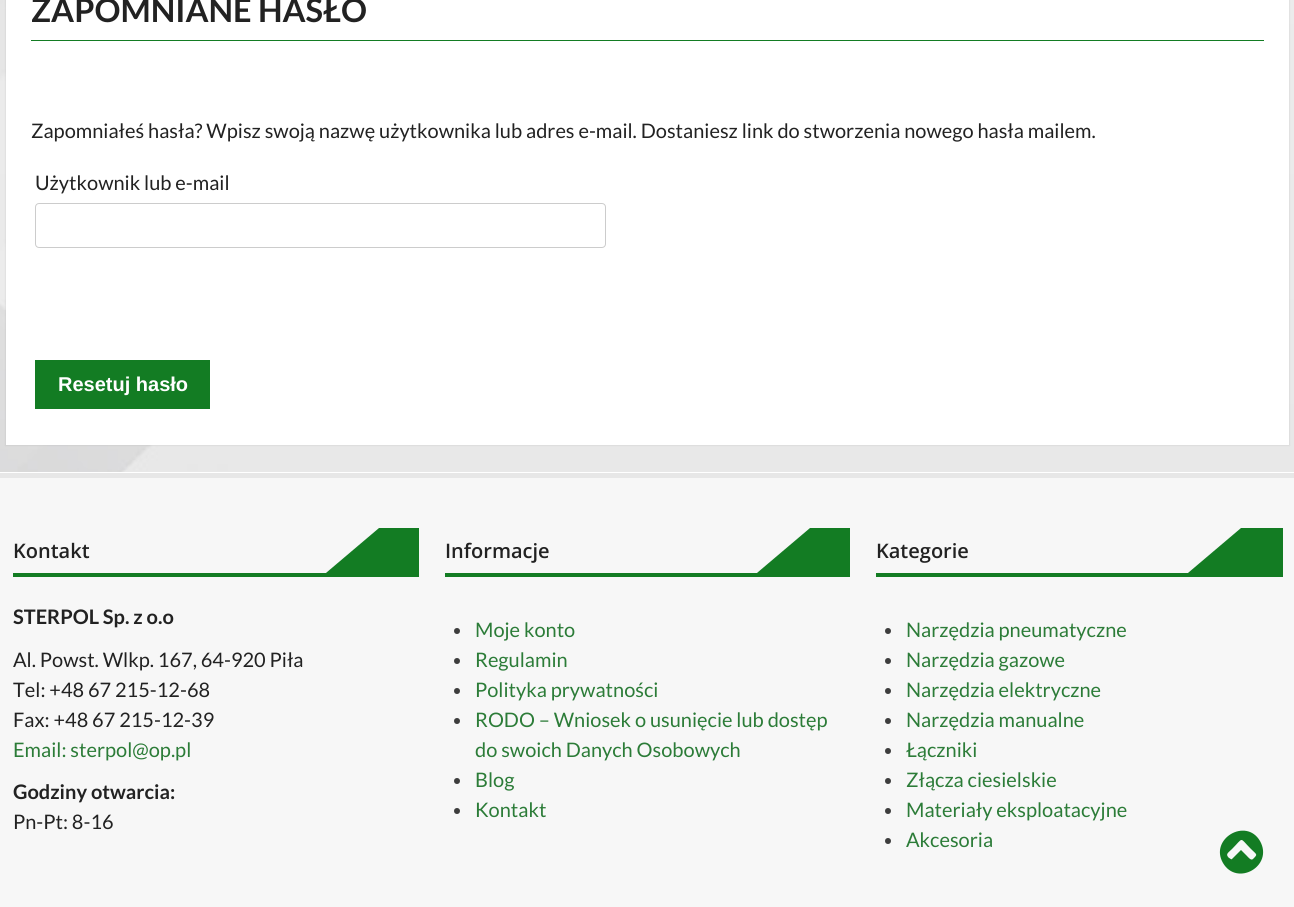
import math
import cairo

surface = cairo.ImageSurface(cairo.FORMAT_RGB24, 1294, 907)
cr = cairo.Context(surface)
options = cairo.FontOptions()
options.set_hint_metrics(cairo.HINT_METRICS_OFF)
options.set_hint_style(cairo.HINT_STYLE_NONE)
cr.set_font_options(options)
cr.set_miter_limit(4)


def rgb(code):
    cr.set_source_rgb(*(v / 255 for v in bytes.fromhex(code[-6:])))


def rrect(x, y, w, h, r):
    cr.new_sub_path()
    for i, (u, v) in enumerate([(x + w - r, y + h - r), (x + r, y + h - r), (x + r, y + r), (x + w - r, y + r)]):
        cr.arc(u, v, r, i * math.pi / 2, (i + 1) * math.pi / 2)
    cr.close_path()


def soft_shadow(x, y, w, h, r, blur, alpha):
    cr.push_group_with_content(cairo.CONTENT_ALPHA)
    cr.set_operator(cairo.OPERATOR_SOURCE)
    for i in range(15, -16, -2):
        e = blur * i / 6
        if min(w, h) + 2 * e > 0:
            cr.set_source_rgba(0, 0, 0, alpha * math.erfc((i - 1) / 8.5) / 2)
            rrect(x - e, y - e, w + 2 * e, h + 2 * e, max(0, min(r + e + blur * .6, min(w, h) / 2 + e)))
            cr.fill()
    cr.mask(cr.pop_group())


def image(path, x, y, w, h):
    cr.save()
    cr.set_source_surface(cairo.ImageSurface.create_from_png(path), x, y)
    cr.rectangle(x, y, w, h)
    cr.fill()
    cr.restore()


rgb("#ffffff")
cr.paint()
rgb("#e7e7e7")
cr.rectangle(0, 473, 1294, 5)
cr.fill()
image("img/1.png", 0, 0, 1294, 472)
rgb("#000000")
soft_shadow(5, -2, 1285, 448, 0, 0.5, 0.05)
rgb("#ffffff")
cr.rectangle(6, 0, 1283, 445)
cr.fill()
rgb("#137c23")
cr.rectangle(31, 40, 1233, 1)
cr.fill()
rrect(35.5, 203.5, 570, 44, 3.5)
rgb("#cccccc")
cr.set_line_width(1)
cr.stroke()
for x, y, w, h, color in [
    (35, 360, 175, 49, "#137c23"),
    (0, 478, 1294, 429, "#f7f7f7"),
    (13, 573, 406, 4, "#137c23"),
]:
    rgb(color)
    cr.rectangle(x, y, w, h)
    cr.fill()
cr.save()
cr.rectangle(13, 528, 406, 45)
cr.clip()
cr.new_path()
cr.move_to(379, 528)
cr.line_to(379, 578)
cr.line_to(320, 578)
cr.close_path()
cr.fill()
cr.restore()
cr.rectangle(379, 528, 40, 45)
cr.fill()
cr.rectangle(445, 573, 405, 4)
cr.fill()
cr.save()
cr.rectangle(445, 528, 405, 45)
cr.clip()
cr.new_path()
cr.move_to(810, 528)
cr.line_to(810, 578)
cr.line_to(751, 578)
cr.close_path()
cr.fill()
cr.restore()
cr.rectangle(810, 528, 40, 45)
cr.fill()
rgb("#3d3d3d")
cr.arc(457, 631, 3, 0, 2 * math.pi)
cr.fill()
cr.arc(457, 661, 3, 0, 2 * math.pi)
cr.fill()
cr.arc(457, 691, 3, 0, 2 * math.pi)
cr.fill()
cr.arc(457, 721, 3, 0, 2 * math.pi)
cr.fill()
cr.arc(457, 781, 3, 0, 2 * math.pi)
cr.fill()
cr.arc(457, 811, 3, 0, 2 * math.pi)
cr.fill()
rgb("#137c23")
cr.rectangle(876, 573, 407, 4)
cr.fill()
cr.save()
cr.rectangle(876, 528, 407, 45)
cr.clip()
cr.new_path()
cr.move_to(1241, 528)
cr.line_to(1241, 578)
cr.line_to(1182, 578)
cr.close_path()
cr.fill()
cr.restore()
cr.rectangle(1241, 528, 42, 45)
cr.fill()
rgb("#3d3d3d")
cr.arc(888, 631, 3, 0, 2 * math.pi)
cr.fill()
cr.arc(888, 661, 3, 0, 2 * math.pi)
cr.fill()
cr.arc(888, 691, 3, 0, 2 * math.pi)
cr.fill()
cr.arc(888, 721, 3, 0, 2 * math.pi)
cr.fill()
cr.arc(888, 751, 3, 0, 2 * math.pi)
cr.fill()
cr.arc(888, 781, 3, 0, 2 * math.pi)
cr.fill()
cr.arc(888, 811, 3, 0, 2 * math.pi)
cr.fill()
cr.arc(888, 841, 3, 0, 2 * math.pi)
cr.fill()
rgb("#137c23")
cr.new_path()
cr.move_to(1253, 859)
cr.curve_to(1258, 854, 1257, 855, 1251, 849)
cr.curve_to(1239, 837, 1244, 837, 1232, 849)
cr.curve_to(1228, 853, 1225, 854, 1229, 858)
cr.curve_to(1230, 858, 1231, 860, 1232, 859)
cr.line_to(1241, 850)
cr.line_to(1247, 856)
cr.curve_to(1248, 857, 1251, 861, 1253, 859)
cr.close_path()
cr.move_to(1260, 841)
cr.curve_to(1274, 866, 1237, 887, 1223, 863)
cr.curve_to(1209, 839, 1246, 817, 1260, 841)
cr.close_path()
cr.fill()
cr.select_font_face("Lato", cairo.FONT_SLANT_NORMAL, cairo.FONT_WEIGHT_BOLD)
cr.set_font_size(32.5)
rgb("#222222")
cr.move_to(31, 22)
cr.show_text("ZAPOMNIANE HASŁO")
cr.select_font_face("Lato")
cr.set_font_size(20)
cr.move_to(31, 138)
cr.show_text("Zapomniałeś hasła? Wpisz swoją nazwę użytkownika lub adres e-mail. Dostaniesz link do stworzenia nowego hasła mailem.")
cr.move_to(35, 190)
cr.show_text("Użytkownik lub e-mail")
cr.select_font_face("Liberation Sans", cairo.FONT_SLANT_NORMAL, cairo.FONT_WEIGHT_BOLD)
rgb("#ffffff")
cr.move_to(58, 391)
cr.show_text("Resetuj hasło")
cr.select_font_face("Open Sans SemiBold")
rgb("#222222")
cr.move_to(13, 558)
cr.show_text("Kontakt")
cr.select_font_face("Lato", cairo.FONT_SLANT_NORMAL, cairo.FONT_WEIGHT_BOLD)
cr.move_to(13, 624)
cr.show_text("STERPOL Sp. z o.o")
cr.select_font_face("Lato")
for x, y, s in [
    (13, 667, "Al. Powst. Wlkp. 167, 64-920 Piła"),
    (13, 697, "Tel: +48 67 215-12-68"),
    (13, 727, "Fax: +48 67 215-12-39"),
]:
    cr.move_to(x, y)
    cr.show_text(s)
rgb("#2c7c38")
cr.move_to(13, 757)
cr.show_text("Email: sterpol@op.pl")
cr.select_font_face("Lato", cairo.FONT_SLANT_NORMAL, cairo.FONT_WEIGHT_BOLD)
rgb("#222222")
cr.move_to(13, 799)
cr.show_text("Godziny otwarcia:")
cr.select_font_face("Lato")
cr.move_to(13, 829)
cr.show_text("Pn-Pt: 8-16")
cr.select_font_face("Open Sans SemiBold")
cr.move_to(445, 558)
cr.show_text("Informacje")
cr.select_font_face("Lato")
rgb("#2c7c38")
for x, y, s in [
    (475, 637, "Moje konto"),
    (475, 667, "Regulamin"),
    (475, 697, "Polityka prywatności"),
    (475, 727, "RODO – Wniosek o usunięcie lub dostęp"),
    (475, 757, "do swoich Danych Osobowych"),
    (475, 787, "Blog"),
    (475, 817, "Kontakt"),
]:
    cr.move_to(x, y)
    cr.show_text(s)
cr.select_font_face("Open Sans SemiBold")
rgb("#222222")
cr.move_to(876, 558)
cr.show_text("Kategorie")
cr.select_font_face("Lato")
rgb("#2c7c38")
for x, y, s in [
    (906, 637, "Narzędzia pneumatyczne"),
    (906, 667, "Narzędzia gazowe"),
    (906, 697, "Narzędzia elektryczne"),
    (906, 727, "Narzędzia manualne"),
    (906, 757, "Łączniki"),
    (906, 787, "Złącza ciesielskie"),
    (906, 817, "Materiały eksploatacyjne"),
    (906, 847, "Akcesoria"),
]:
    cr.move_to(x, y)
    cr.show_text(s)
surface.write_to_png("page.png")
